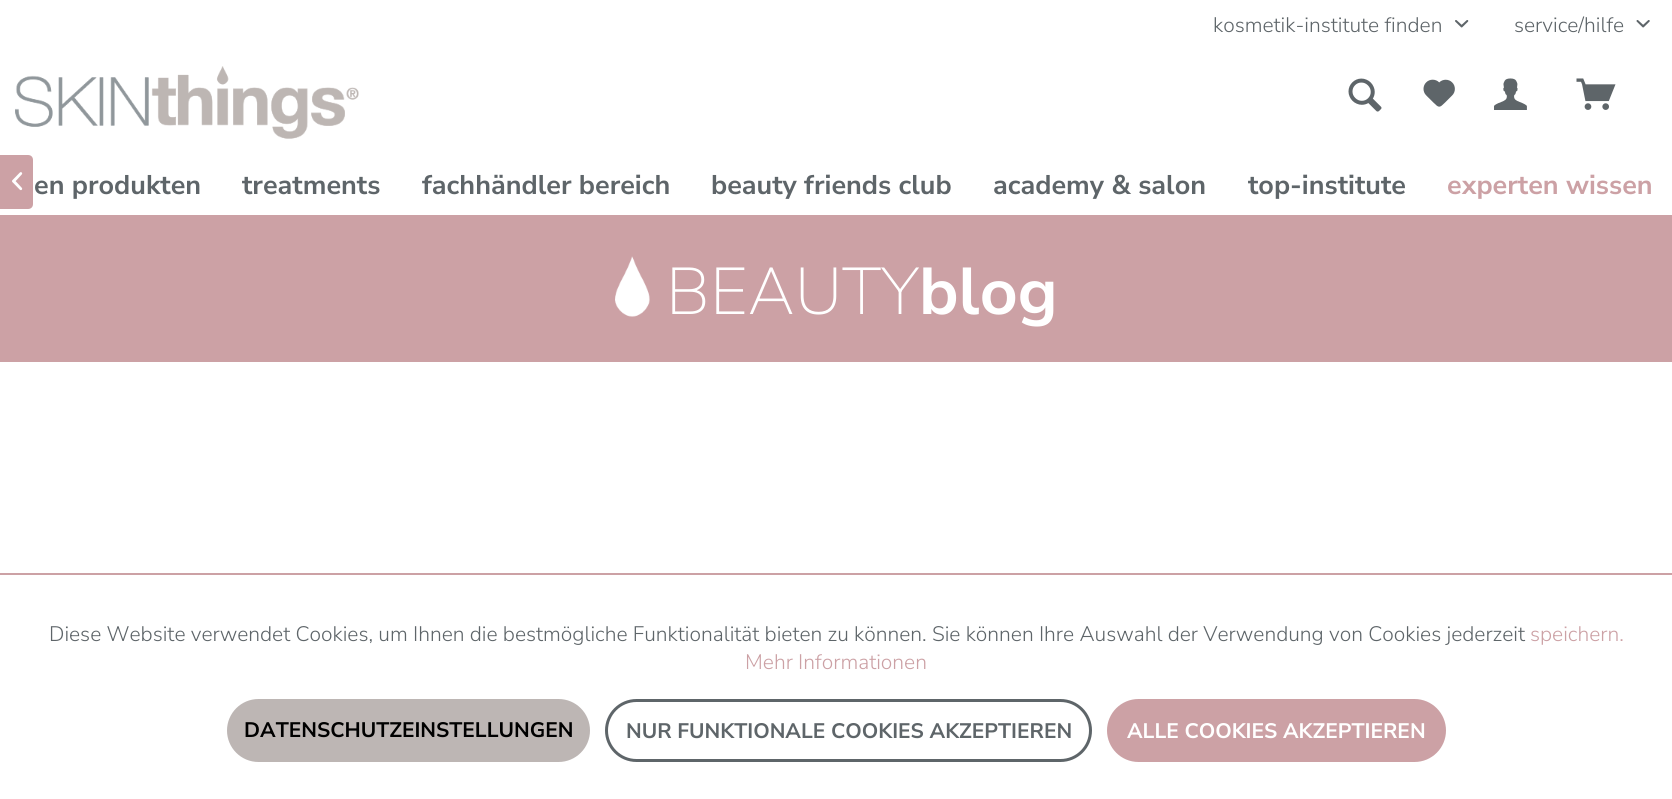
import math
import cairo

surface = cairo.ImageSurface(cairo.FORMAT_RGB24, 1672, 799)
cr = cairo.Context(surface)
options = cairo.FontOptions()
options.set_hint_metrics(cairo.HINT_METRICS_OFF)
options.set_hint_style(cairo.HINT_STYLE_NONE)
cr.set_font_options(options)
cr.set_miter_limit(4)


def rgb(code):
    cr.set_source_rgb(*(v / 255 for v in bytes.fromhex(code[-6:])))


def rrect(x, y, w, h, r):
    cr.new_sub_path()
    for i, (u, v) in enumerate([(x + w - r, y + h - r), (x + r, y + h - r), (x + r, y + r), (x + w - r, y + r)]):
        cr.arc(u, v, r, i * math.pi / 2, (i + 1) * math.pi / 2)
    cr.close_path()


def image(path, x, y, w, h):
    cr.save()
    cr.set_source_surface(cairo.ImageSurface.create_from_png(path), x, y)
    cr.rectangle(x, y, w, h)
    cr.fill()
    cr.restore()


rgb("#ffffff")
cr.paint()
image("img/1.png", 1455, 20, 14, 8)
image("img/2.png", 1636, 20, 14, 8)
image("img/3.png", 15, 66, 344, 73)
image("img/4.png", 1348, 78, 34, 34)
image("img/5.png", 1423, 79, 32, 28)
image("img/6.png", 1494, 78, 33, 32)
image("img/7.png", 1576, 78, 40, 32)
rgb("#cca1a5")
cr.new_path()
cr.move_to(0, 155)
cr.line_to(28, 155)
cr.curve_to(31, 155, 33, 157, 33, 160)
cr.line_to(33, 204)
cr.curve_to(33, 207, 31, 209, 28, 209)
cr.line_to(0, 209)
cr.close_path()
cr.fill()
image("img/8.png", 12, 172, 11, 19)
cr.rectangle(0, 215, 1672, 147)
cr.fill()
image("img/9.png", 615, 256, 35, 61)
cr.rectangle(0, 573, 1672, 2)
cr.fill()
rgb("#bdb6b4")
rrect(228, 700, 361, 61, 30.5)
cr.fill_preserve()
cr.stroke()
rrect(606.5, 700.5, 484, 60, 30)
rgb("#5e6569")
cr.set_line_width(3)
cr.stroke()
rgb("#cca1a5")
rrect(1108, 700, 337, 61, 30.5)
cr.fill_preserve()
cr.set_line_width(2)
cr.stroke()
cr.select_font_face("Nunito Sans ExtraLight")
cr.set_font_size(21)
rgb("#5e6569")
cr.move_to(1213, 32)
cr.show_text("kosmetik-institute finden")
cr.move_to(1514, 32)
cr.show_text("service/hilfe")
cr.select_font_face("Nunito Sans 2 ExtraLight")
cr.set_font_size(27)
for x, y, s in [
    (34, 194, "en produkten"),
    (242, 194, "treatments"),
    (422, 194, "fachhändler bereich"),
    (711, 194, "beauty friends club"),
    (993, 194, "academy & salon"),
    (1248, 194, "top-institute"),
]:
    cr.move_to(x, y)
    cr.show_text(s)
rgb("#cca1a5")
cr.move_to(1447, 194)
cr.show_text("experten wissen")
cr.select_font_face("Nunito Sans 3 ExtraLight")
cr.set_font_size(66)
rgb("#ffffff")
cr.move_to(666, 314)
cr.show_text("BEAUTY")
cr.select_font_face("Nunito Sans 2 ExtraLight")
cr.move_to(919, 314)
cr.show_text("blog")
cr.select_font_face("Nunito Sans ExtraLight")
cr.set_font_size(21)
rgb("#5e6569")
cr.move_to(49, 641)
cr.show_text("Diese Website verwendet Cookies, um Ihnen die bestmögliche Funktionalität bieten zu können. Sie können Ihre Auswahl der Verwendung von Cookies jederzeit")
rgb("#cca1a5")
cr.move_to(1530, 641)
cr.show_text("speichern.")
cr.move_to(745, 669)
cr.show_text("Mehr Informationen")
cr.select_font_face("Nunito Sans 2 ExtraLight")
rgb("#000000")
cr.move_to(244, 737)
cr.show_text("DATENSCHUTZEINSTELLUNGEN")
rgb("#5e6569")
cr.move_to(626, 738)
cr.show_text("NUR FUNKTIONALE COOKIES AKZEPTIEREN")
rgb("#ffffff")
cr.move_to(1127, 738)
cr.show_text("ALLE COOKIES AKZEPTIEREN")
surface.write_to_png("page.png")
